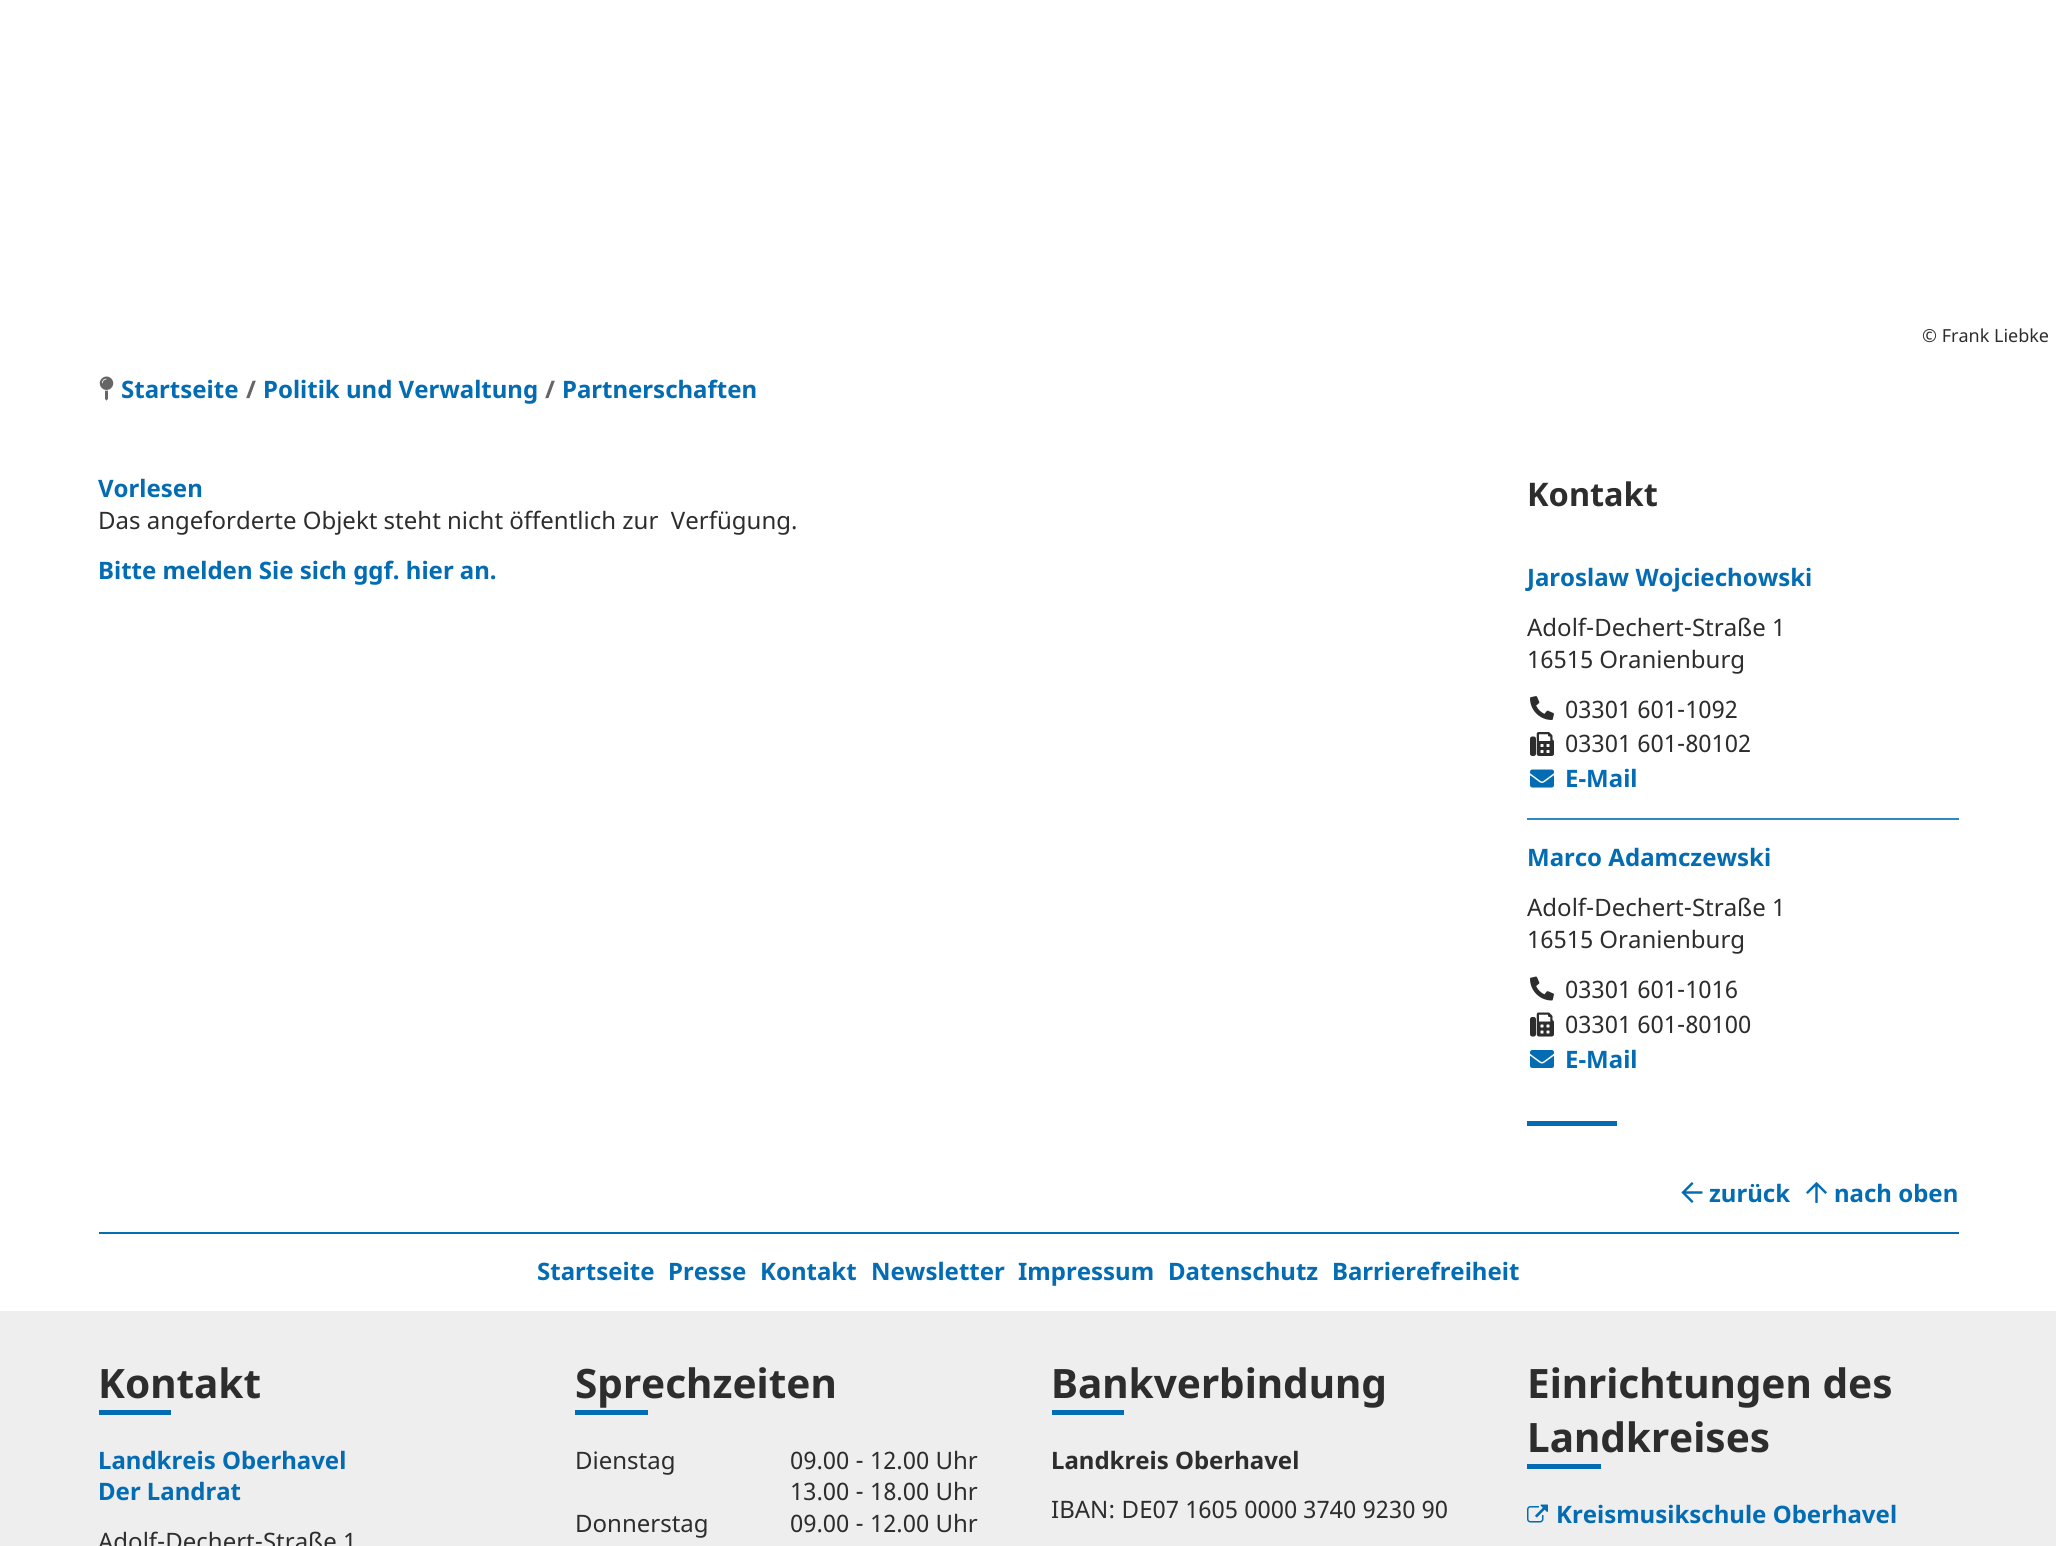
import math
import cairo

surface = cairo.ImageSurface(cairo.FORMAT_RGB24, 2056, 1546)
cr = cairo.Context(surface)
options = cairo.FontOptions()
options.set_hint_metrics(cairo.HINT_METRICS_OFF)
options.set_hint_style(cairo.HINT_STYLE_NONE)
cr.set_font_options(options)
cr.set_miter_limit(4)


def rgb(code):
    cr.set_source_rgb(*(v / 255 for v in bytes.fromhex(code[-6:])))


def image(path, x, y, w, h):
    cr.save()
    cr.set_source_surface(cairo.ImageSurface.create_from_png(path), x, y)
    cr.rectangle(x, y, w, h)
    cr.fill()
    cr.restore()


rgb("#ffffff")
cr.paint()
image("img/1.png", 99, 376, 15, 25)
image("img/2.png", 1530, 696, 24, 24)
image("img/3.png", 1530, 732, 24, 24)
image("img/4.png", 1530, 769, 24, 19)
rgb("#2d8bbf")
cr.rectangle(1527, 818, 432, 2)
cr.fill()
image("img/5.png", 1530, 976, 24, 25)
image("img/6.png", 1530, 1012, 24, 25)
image("img/7.png", 1530, 1050, 24, 18)
rgb("#046cb3")
cr.rectangle(1527, 1121, 90, 5)
cr.fill()
image("img/8.png", 1681, 1182, 22, 21)
image("img/9.png", 1806, 1182, 21, 21)
for x, y, w, h, color in [
    (99, 1232, 1860, 2, "#056db3"),
    (0, 1311, 2056, 235, "#eeeeee"),
    (99, 1410, 72, 5, "#046cb3"),
    (575, 1410, 73, 5, "#046cb3"),
    (1052, 1410, 72, 5, "#046cb3"),
    (1527, 1464, 74, 5, "#046cb3"),
]:
    rgb(color)
    cr.rectangle(x, y, w, h)
    cr.fill()
image("img/10.png", 1527, 1504, 21, 19)
cr.select_font_face("Noto Sans")
cr.set_font_size(18)
rgb("#2d2d2d")
cr.move_to(1922, 342)
cr.show_text("© Frank Liebke")
cr.select_font_face("Noto Sans", cairo.FONT_SLANT_NORMAL, cairo.FONT_WEIGHT_BOLD)
cr.set_font_size(24)
rgb("#046cb3")
cr.move_to(121, 398)
cr.show_text("Startseite")
rgb("#666666")
cr.move_to(246, 398)
cr.show_text("/")
rgb("#046cb3")
cr.move_to(263, 398)
cr.show_text("Politik und Verwaltung")
rgb("#666666")
cr.move_to(545, 398)
cr.show_text("/")
rgb("#046cb3")
cr.move_to(562, 398)
cr.show_text("Partnerschaften")
cr.move_to(98, 497)
cr.show_text("Vorlesen")
cr.select_font_face("Noto Sans")
rgb("#2d2d2d")
cr.move_to(98, 529)
cr.show_text("Das angeforderte Objekt steht nicht öffentlich zur  Verfügung.")
cr.select_font_face("Noto Sans", cairo.FONT_SLANT_NORMAL, cairo.FONT_WEIGHT_BOLD)
rgb("#046cb3")
cr.move_to(98, 579)
cr.show_text("Bitte melden Sie sich ggf. hier an.")
cr.set_font_size(32.5)
rgb("#2d2d2d")
cr.move_to(1527, 506)
cr.show_text("Kontakt")
cr.set_font_size(24)
rgb("#046cb3")
cr.move_to(1527, 586)
cr.show_text("Jaroslaw Wojciechowski")
cr.select_font_face("Noto Sans")
rgb("#2d2d2d")
for x, y, s in [
    (1527, 636, "Adolf-Dechert-Straße 1"),
    (1527, 668, "16515 Oranienburg"),
    (1565, 718, "03301 601-1092"),
    (1565, 752, "03301 601-80102"),
]:
    cr.move_to(x, y)
    cr.show_text(s)
cr.select_font_face("Noto Sans", cairo.FONT_SLANT_NORMAL, cairo.FONT_WEIGHT_BOLD)
rgb("#046cb3")
cr.move_to(1565, 787)
cr.show_text("E-Mail")
cr.move_to(1527, 866)
cr.show_text("Marco Adamczewski")
cr.select_font_face("Noto Sans")
rgb("#2d2d2d")
for x, y, s in [
    (1527, 916, "Adolf-Dechert-Straße 1"),
    (1527, 948, "16515 Oranienburg"),
    (1565, 998, "03301 601-1016"),
    (1565, 1033, "03301 601-80100"),
]:
    cr.move_to(x, y)
    cr.show_text(s)
cr.select_font_face("Noto Sans", cairo.FONT_SLANT_NORMAL, cairo.FONT_WEIGHT_BOLD)
rgb("#046cb3")
for x, y, s in [
    (1565, 1068, "E-Mail"),
    (1709, 1202, "zurück"),
    (1834, 1202, "nach oben"),
    (537, 1280, "Startseite"),
    (668, 1280, "Presse"),
    (760, 1280, "Kontakt"),
    (871, 1280, "Newsletter"),
    (1018, 1280, "Impressum"),
    (1168, 1280, "Datenschutz"),
    (1332, 1280, "Barrierefreiheit"),
]:
    cr.move_to(x, y)
    cr.show_text(s)
cr.set_font_size(40.5)
rgb("#2d2d2d")
cr.move_to(98, 1398)
cr.show_text("Kontakt")
cr.set_font_size(24)
rgb("#046cb3")
cr.move_to(98, 1469)
cr.show_text("Landkreis Oberhavel")
cr.move_to(98, 1500)
cr.show_text("Der Landrat")
cr.select_font_face("Noto Sans")
rgb("#2d2d2d")
cr.move_to(98, 1550)
cr.show_text("Adolf-Dechert-Straße 1")
cr.select_font_face("Noto Sans", cairo.FONT_SLANT_NORMAL, cairo.FONT_WEIGHT_BOLD)
cr.set_font_size(40.5)
cr.move_to(575, 1398)
cr.show_text("Sprechzeiten")
cr.select_font_face("Noto Sans")
cr.set_font_size(24)
for x, y, s in [
    (575, 1469, "Dienstag"),
    (790, 1469, "09.00 - 12.00 Uhr"),
    (790, 1500, "13.00 - 18.00 Uhr"),
    (575, 1532, "Donnerstag"),
    (790, 1532, "09.00 - 12.00 Uhr"),
]:
    cr.move_to(x, y)
    cr.show_text(s)
cr.select_font_face("Noto Sans", cairo.FONT_SLANT_NORMAL, cairo.FONT_WEIGHT_BOLD)
cr.set_font_size(40.5)
cr.move_to(1051, 1398)
cr.show_text("Bankverbindung")
cr.set_font_size(24)
cr.move_to(1051, 1469)
cr.show_text("Landkreis Oberhavel")
cr.select_font_face("Noto Sans")
cr.move_to(1051, 1518)
cr.show_text("IBAN: DE07 1605 0000 3740 9230 90")
cr.select_font_face("Noto Sans", cairo.FONT_SLANT_NORMAL, cairo.FONT_WEIGHT_BOLD)
cr.set_font_size(40.5)
cr.move_to(1527, 1398)
cr.show_text("Einrichtungen des")
cr.move_to(1527, 1452)
cr.show_text("Landkreises")
cr.set_font_size(24)
rgb("#046cb3")
cr.move_to(1556, 1523)
cr.show_text("Kreismusikschule Oberhavel")
surface.write_to_png("page.png")
